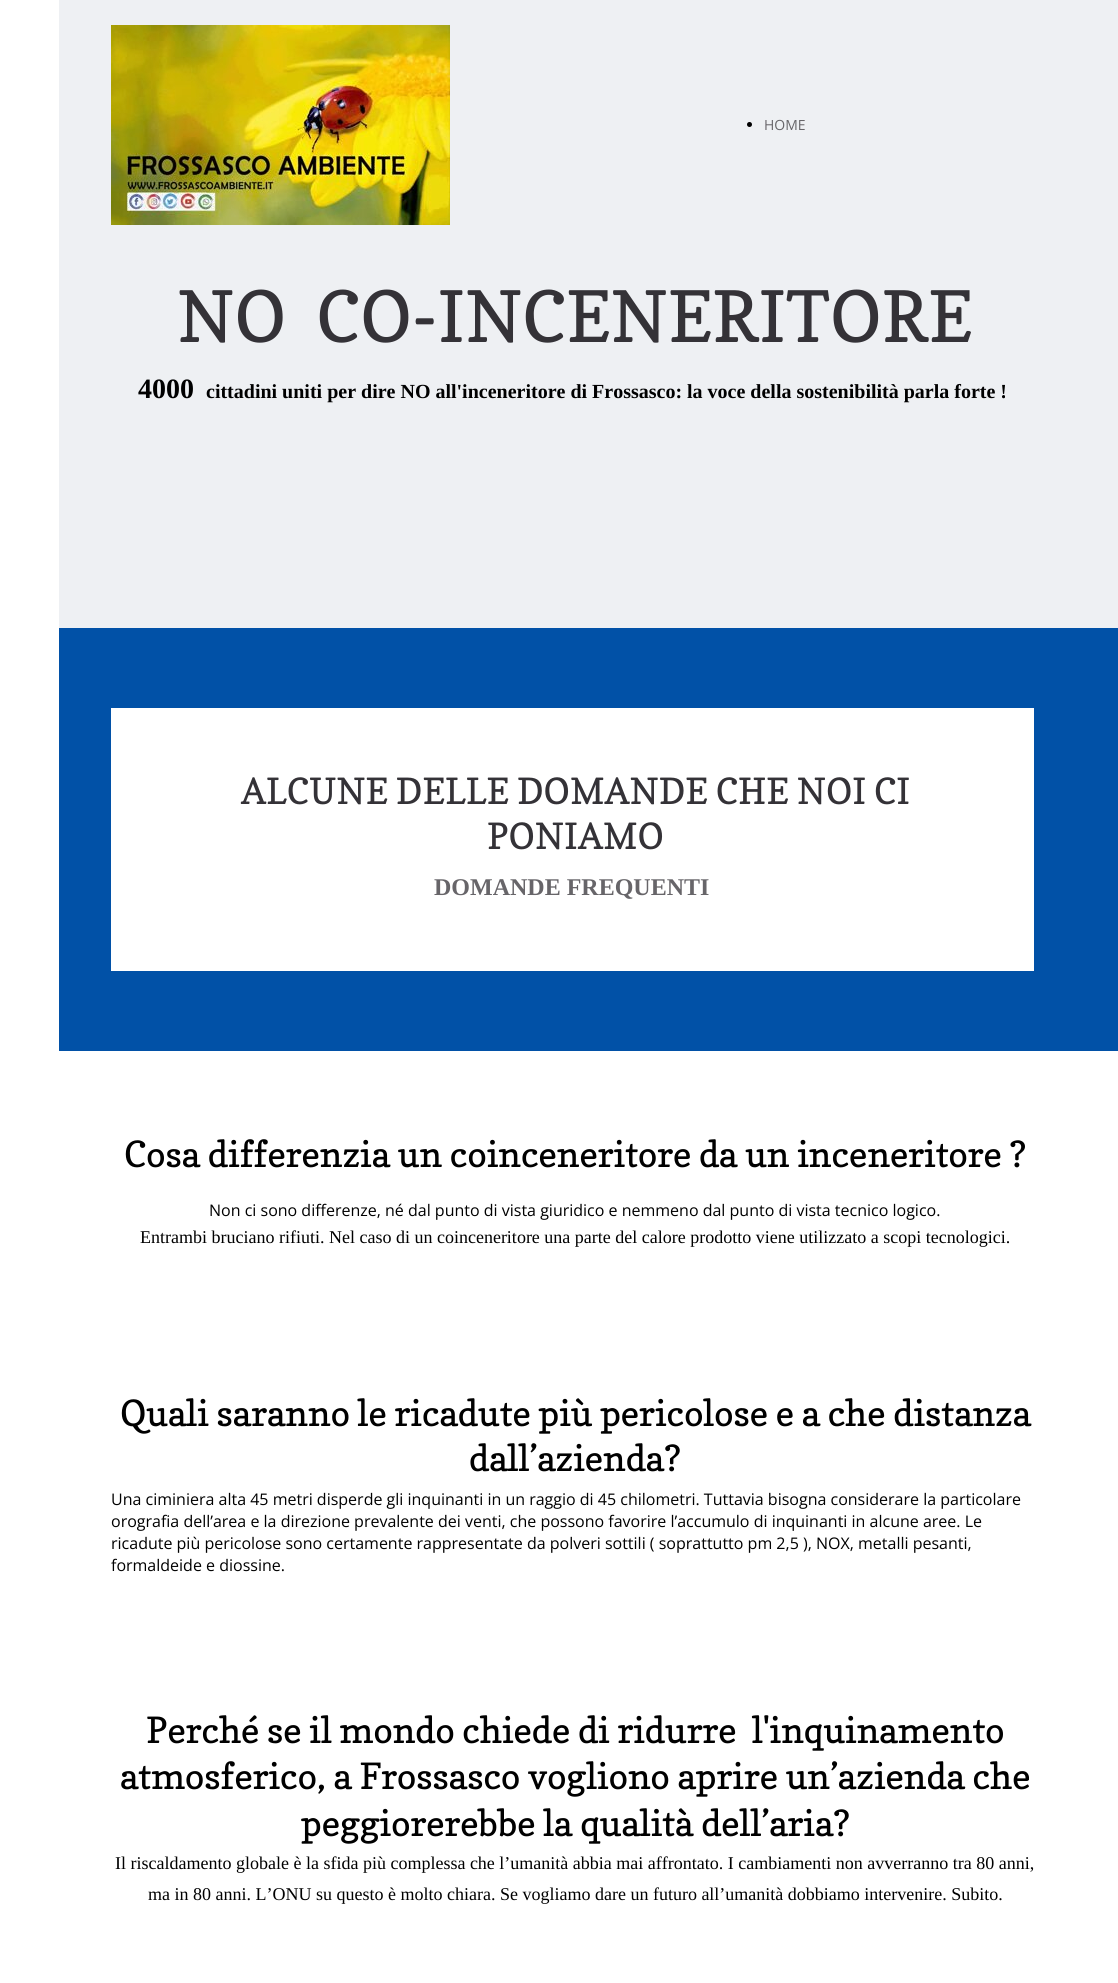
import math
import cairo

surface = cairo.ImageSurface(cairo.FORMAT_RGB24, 1118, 1983)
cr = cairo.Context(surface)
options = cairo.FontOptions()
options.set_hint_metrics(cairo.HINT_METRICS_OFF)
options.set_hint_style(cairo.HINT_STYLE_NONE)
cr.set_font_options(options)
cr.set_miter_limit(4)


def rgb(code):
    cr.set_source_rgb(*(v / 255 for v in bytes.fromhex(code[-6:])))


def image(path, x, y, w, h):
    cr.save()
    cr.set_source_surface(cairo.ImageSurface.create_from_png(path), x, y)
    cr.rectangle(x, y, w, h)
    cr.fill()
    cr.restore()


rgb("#ffffff")
cr.paint()
rgb("#eef0f3")
cr.rectangle(59, 0, 1059, 628)
cr.fill()
image("img/1.png", 111, 25, 339, 200)
rgb("#000000")
cr.arc(749.5, 124.5, 2.5, 0, 2 * math.pi)
cr.fill()
rgb("#0151a7")
cr.rectangle(59, 628, 1059, 423)
cr.fill()
rgb("#ffffff")
cr.rectangle(111, 708, 923, 263)
cr.fill()
cr.select_font_face("Open Sans")
cr.set_font_size(14)
rgb("#676569")
cr.move_to(764, 130)
cr.show_text("HOME")
cr.select_font_face("Copse")
cr.set_font_size(70.5)
rgb("#343237")
cr.move_to(177, 342)
cr.show_text("NO  CO-INCENERITORE")
cr.select_font_face("Liberation Serif", cairo.FONT_SLANT_NORMAL, cairo.FONT_WEIGHT_BOLD)
cr.set_font_size(28)
rgb("#000000")
cr.move_to(138, 398)
cr.show_text("4000")
cr.set_font_size(20)
cr.move_to(206, 398)
cr.show_text("cittadini uniti per dire NO all'inceneritore di Frossasco: la voce della sostenibilità parla forte !")
cr.select_font_face("Copse")
cr.set_font_size(35.95)
rgb("#343237")
cr.move_to(241, 804)
cr.show_text("ALCUNE DELLE DOMANDE CHE NOI CI")
cr.move_to(487, 849)
cr.show_text("PONIAMO")
cr.select_font_face("Liberation Serif", cairo.FONT_SLANT_NORMAL, cairo.FONT_WEIGHT_BOLD)
cr.set_font_size(24)
rgb("#676569")
cr.move_to(434, 895)
cr.show_text("DOMANDE FREQUENTI")
cr.select_font_face("Copse")
cr.set_font_size(35.95)
rgb("#000000")
cr.move_to(124, 1167)
cr.show_text("Cosa differenzia un coinceneritore da un inceneritore ?")
cr.select_font_face("Open Sans")
cr.set_font_size(16)
cr.move_to(209, 1216)
cr.show_text("Non ci sono differenze, né dal punto di vista giuridico e nemmeno dal punto di vista tecnico logico.")
cr.select_font_face("Liberation Serif")
cr.set_font_size(18)
cr.move_to(140, 1243)
cr.show_text("Entrambi bruciano rifiuti. Nel caso di un coinceneritore una parte del calore prodotto viene utilizzato a scopi tecnologici.")
cr.select_font_face("Copse")
cr.set_font_size(35.95)
cr.move_to(120, 1426)
cr.show_text("Quali saranno le ricadute più pericolose e a che distanza")
cr.move_to(469, 1471)
cr.show_text("dall’azienda?")
cr.select_font_face("Open Sans")
cr.set_font_size(16)
for x, y, s in [
    (111, 1505, "Una ciminiera alta 45 metri disperde gli inquinanti in un raggio di 45 chilometri. Tuttavia bisogna considerare la particolare"),
    (111, 1527, "orografia dell’area e la direzione prevalente dei venti, che possono favorire l’accumulo di inquinanti in alcune aree. Le"),
    (111, 1549, "ricadute più pericolose sono certamente rappresentate da polveri sottili ( soprattutto pm 2,5 ), NOX, metalli pesanti,"),
    (111, 1571, "formaldeide e diossine."),
]:
    cr.move_to(x, y)
    cr.show_text(s)
cr.select_font_face("Copse")
cr.set_font_size(35.95)
for x, y, s in [
    (146, 1743, "Perché se il mondo chiede di ridurre  l'inquinamento"),
    (120, 1789, "atmosferico, a Frossasco vogliono aprire un’azienda che"),
    (301, 1836, "peggiorerebbe la qualità dell’aria?"),
]:
    cr.move_to(x, y)
    cr.show_text(s)
cr.select_font_face("Liberation Serif")
cr.set_font_size(18)
cr.move_to(115, 1869)
cr.show_text("Il riscaldamento globale è la sfida più complessa che l’umanità abbia mai affrontato. I cambiamenti non avverranno tra 80 anni,")
cr.move_to(148, 1900)
cr.show_text("ma in 80 anni. L’ONU su questo è molto chiara. Se vogliamo dare un futuro all’umanità dobbiamo intervenire. Subito.")
surface.write_to_png("page.png")
